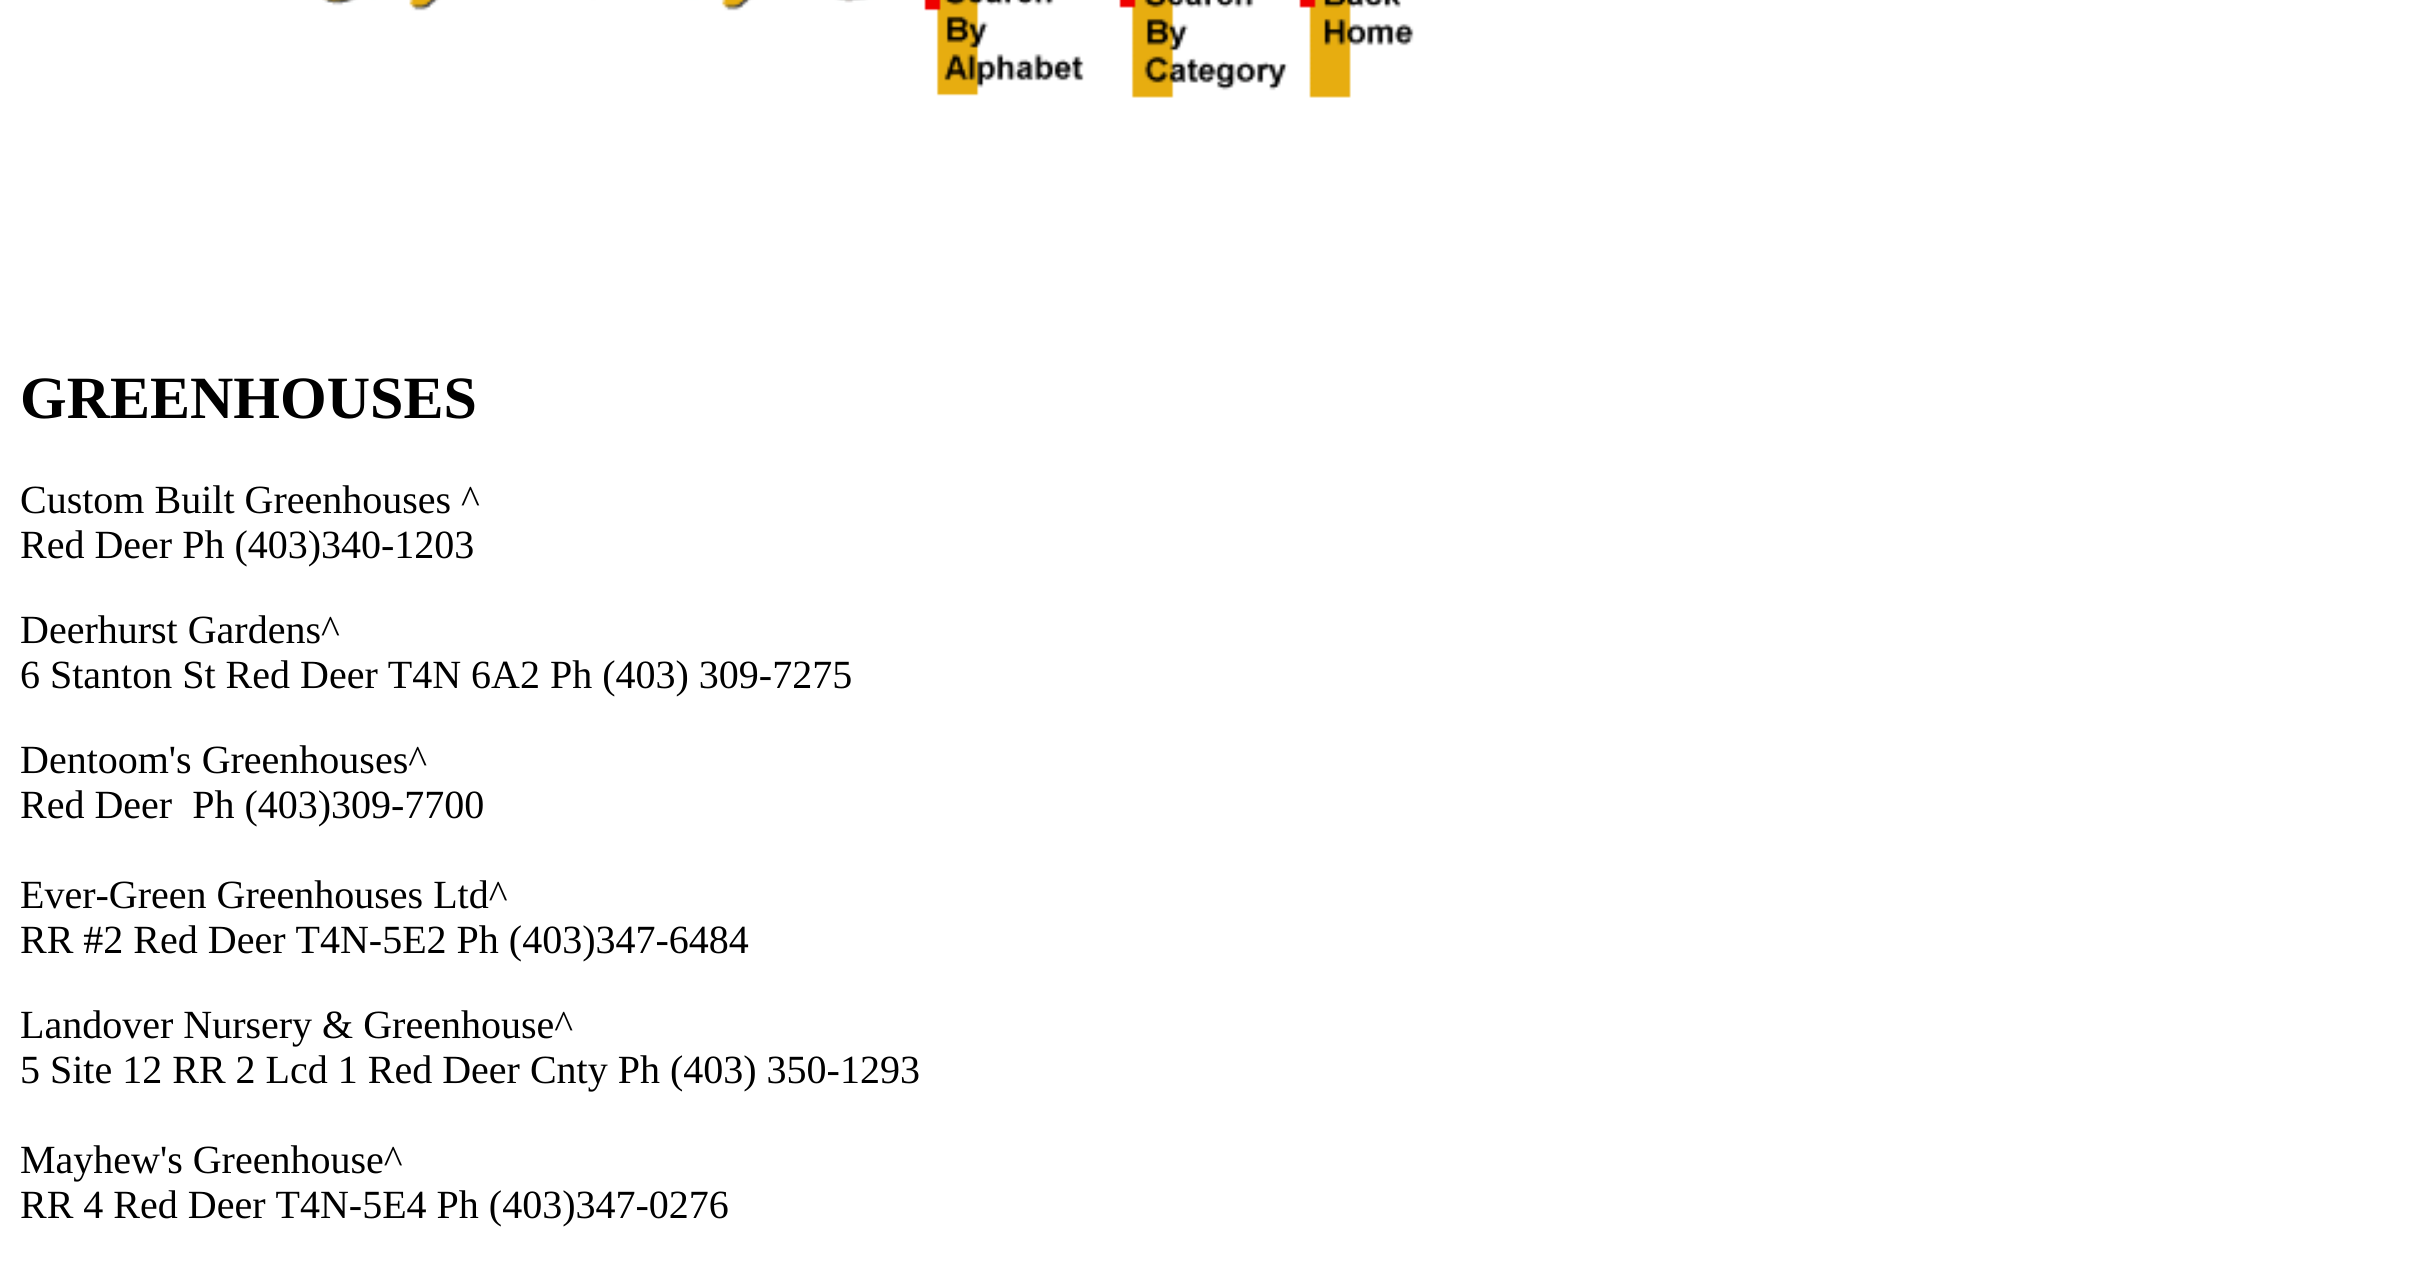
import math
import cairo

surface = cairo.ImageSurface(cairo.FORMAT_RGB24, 2432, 1281)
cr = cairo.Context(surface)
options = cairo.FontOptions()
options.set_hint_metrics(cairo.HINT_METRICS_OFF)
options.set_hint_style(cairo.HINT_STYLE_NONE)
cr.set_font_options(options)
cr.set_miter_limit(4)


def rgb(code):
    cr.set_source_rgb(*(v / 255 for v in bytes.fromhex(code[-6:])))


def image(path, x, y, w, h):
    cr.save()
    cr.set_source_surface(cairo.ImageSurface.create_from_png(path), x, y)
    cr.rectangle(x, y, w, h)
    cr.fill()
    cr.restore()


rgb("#ffffff")
cr.paint()
image("img/1.png", 322, 0, 1092, 98)
cr.select_font_face("Liberation Serif", cairo.FONT_SLANT_NORMAL, cairo.FONT_WEIGHT_BOLD)
cr.set_font_size(60)
rgb("#000000")
cr.move_to(20, 418)
cr.show_text("GREENHOUSES")
cr.select_font_face("Liberation Serif")
cr.set_font_size(40)
for x, y, s in [
    (20, 513, "Custom Built Greenhouses ^"),
    (20, 558, "Red Deer Ph (403)340-1203"),
    (20, 643, "Deerhurst Gardens^"),
    (20, 688, "6 Stanton St Red Deer T4N 6A2 Ph (403) 309-7275"),
    (20, 773, "Dentoom's Greenhouses^"),
    (20, 818, "Red Deer  Ph (403)309-7700"),
    (20, 908, "Ever-Green Greenhouses Ltd^"),
    (20, 953, "RR #2 Red Deer T4N-5E2 Ph (403)347-6484"),
    (20, 1038, "Landover Nursery & Greenhouse^"),
    (20, 1083, "5 Site 12 RR 2 Lcd 1 Red Deer Cnty Ph (403) 350-1293"),
    (20, 1173, "Mayhew's Greenhouse^"),
    (20, 1218, "RR 4 Red Deer T4N-5E4 Ph (403)347-0276"),
]:
    cr.move_to(x, y)
    cr.show_text(s)
surface.write_to_png("page.png")
